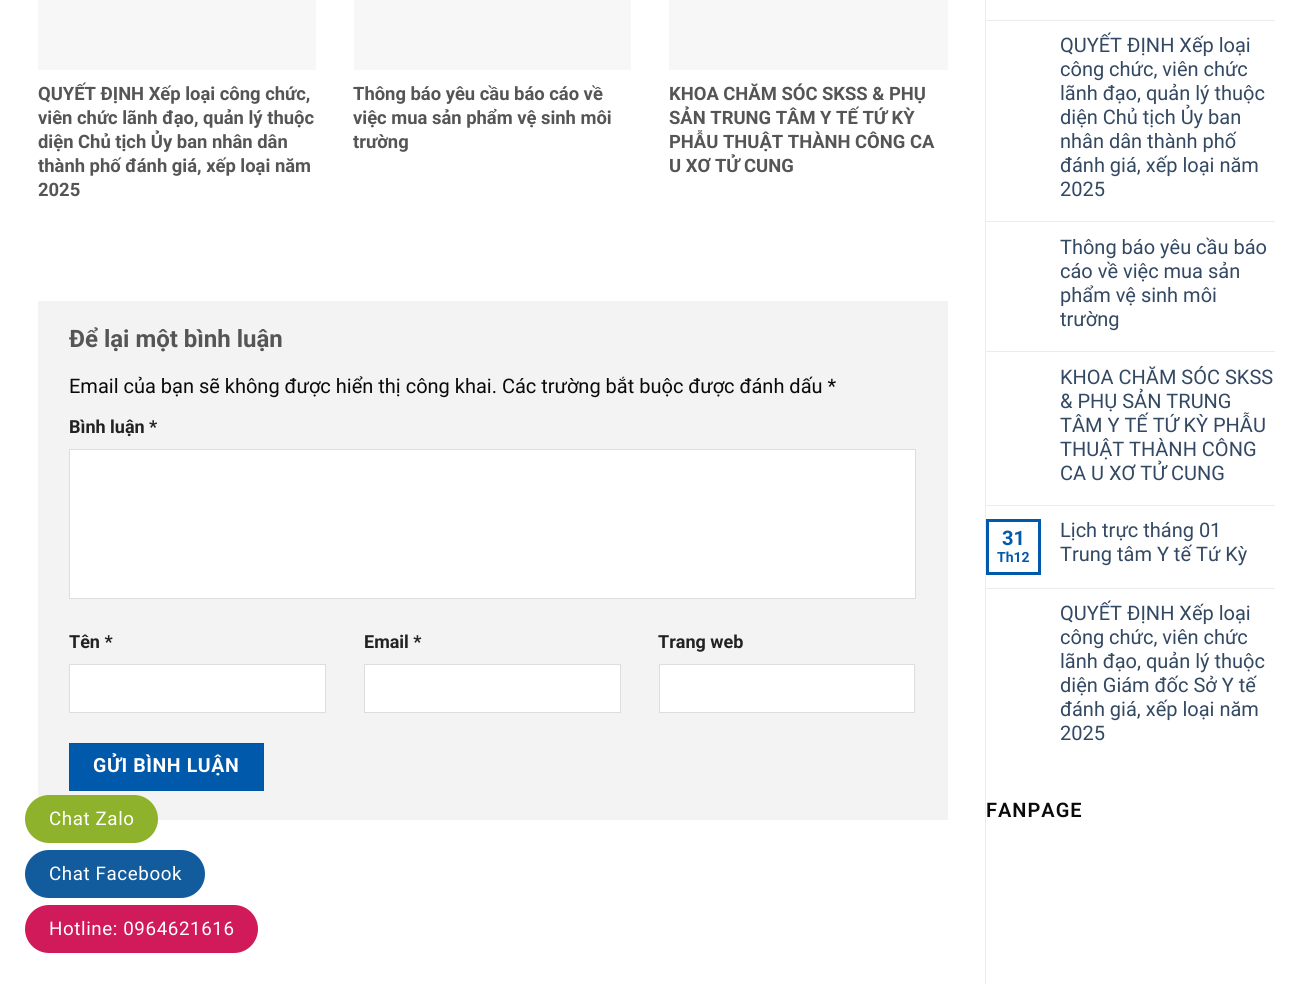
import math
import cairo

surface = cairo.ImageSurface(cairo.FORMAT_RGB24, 1312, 984)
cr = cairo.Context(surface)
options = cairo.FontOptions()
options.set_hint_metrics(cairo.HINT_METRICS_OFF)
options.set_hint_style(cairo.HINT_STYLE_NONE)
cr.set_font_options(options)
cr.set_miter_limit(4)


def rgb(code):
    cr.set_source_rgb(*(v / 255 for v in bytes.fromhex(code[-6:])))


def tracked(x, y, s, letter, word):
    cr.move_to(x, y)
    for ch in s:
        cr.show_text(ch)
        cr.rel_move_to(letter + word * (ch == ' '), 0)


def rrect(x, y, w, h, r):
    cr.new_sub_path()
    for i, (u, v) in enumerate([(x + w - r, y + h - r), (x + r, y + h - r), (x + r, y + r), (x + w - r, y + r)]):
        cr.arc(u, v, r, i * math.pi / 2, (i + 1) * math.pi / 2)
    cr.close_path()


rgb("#ffffff")
cr.paint()
for x, y, w, h, color in [
    (38, 0, 278, 70, "#f7f7f7"),
    (354, 0, 277, 70, "#f7f7f7"),
    (669, 0, 279, 70, "#f7f7f7"),
    (38, 301, 910, 519, "#f3f3f3"),
]:
    rgb(color)
    cr.rectangle(x, y, w, h)
    cr.fill()
rgb("#ffffff")
cr.rectangle(69.5, 449.5, 846, 149)
cr.fill_preserve()
rgb("#dddddd")
cr.set_line_width(1)
cr.stroke()
rgb("#ffffff")
cr.rectangle(69.5, 664.5, 256, 48)
cr.fill_preserve()
rgb("#dddddd")
cr.stroke()
rgb("#ffffff")
cr.rectangle(364.5, 664.5, 256, 48)
cr.fill_preserve()
rgb("#dddddd")
cr.stroke()
rgb("#ffffff")
cr.rectangle(659.5, 664.5, 255, 48)
cr.fill_preserve()
rgb("#dddddd")
cr.stroke()
rgb("#0059ab")
cr.rectangle(69.5, 743.5, 194, 47)
cr.fill_preserve()
rgb("#0055a2")
cr.stroke()
for x, y, w, h, color in [
    (985, 0, 1, 984, "#ececec"),
    (986, 20, 289, 1, "#ececec"),
    (986, 221, 289, 1, "#ececec"),
    (986, 351, 289, 1, "#ececec"),
    (986, 505, 289, 1, "#ececec"),
]:
    rgb(color)
    cr.rectangle(x, y, w, h)
    cr.fill()
cr.rectangle(987.5, 520.5, 52, 53)
rgb("#0059ab")
cr.set_line_width(3)
cr.stroke()
rgb("#ececec")
cr.rectangle(986, 588, 289, 1)
cr.fill()
rgb("#8eb22b")
rrect(25, 795, 133, 48, 24)
cr.fill()
rgb("#125c9e")
rrect(25, 850, 180, 48, 24)
cr.fill()
rgb("#d11a59")
rrect(25, 905, 233, 48, 24)
cr.fill()
cr.select_font_face("Roboto", cairo.FONT_SLANT_NORMAL, cairo.FONT_WEIGHT_BOLD)
cr.set_font_size(18.4)
rgb("#555555")
for x, y, s in [
    (38, 100, "QUYẾT ĐỊNH Xếp loại công chức,"),
    (38, 124, "viên chức lãnh đạo, quản lý thuộc"),
    (38, 148, "diện Chủ tịch Ủy ban nhân dân"),
    (38, 172, "thành phố đánh giá, xếp loại năm"),
    (38, 196, "2025"),
    (353, 100, "Thông báo yêu cầu báo cáo về"),
    (353, 124, "việc mua sản phẩm vệ sinh môi"),
    (353, 148, "trường"),
    (669, 100, "KHOA CHĂM SÓC SKSS & PHỤ"),
    (669, 124, "SẢN TRUNG TÂM Y TẾ TỨ KỲ"),
    (669, 148, "PHẪU THUẬT THÀNH CÔNG CA"),
    (669, 172, "U XƠ TỬ CUNG"),
]:
    cr.move_to(x, y)
    cr.show_text(s)
cr.set_font_size(24)
cr.move_to(69, 347)
cr.show_text("Để lại một bình luận")
cr.select_font_face("Roboto")
cr.set_font_size(20)
rgb("#0a0a0a")
cr.move_to(69, 393)
cr.show_text("Email của bạn sẽ không được hiển thị công khai. Các trường bắt buộc được đánh dấu *")
cr.select_font_face("Roboto", cairo.FONT_SLANT_NORMAL, cairo.FONT_WEIGHT_BOLD)
cr.set_font_size(18)
rgb("#222222")
for x, y, s in [
    (69, 433, "Bình luận *"),
    (69, 648, "Tên *"),
    (364, 648, "Email *"),
    (658, 648, "Trang web"),
]:
    cr.move_to(x, y)
    cr.show_text(s)
cr.set_font_size(19.5)
rgb("#ffffff")
tracked(93, 772, "GỬI BÌNH LUẬN", 0.6, 0)
cr.select_font_face("Roboto")
cr.set_font_size(20)
rgb("#334862")
for x, y, s in [
    (1060, 52, "QUYẾT ĐỊNH Xếp loại"),
    (1060, 76, "công chức, viên chức"),
    (1060, 100, "lãnh đạo, quản lý thuộc"),
    (1060, 124, "diện Chủ tịch Ủy ban"),
    (1060, 148, "nhân dân thành phố"),
    (1060, 172, "đánh giá, xếp loại năm"),
    (1060, 196, "2025"),
    (1060, 254, "Thông báo yêu cầu báo"),
    (1060, 278, "cáo về việc mua sản"),
    (1060, 302, "phẩm vệ sinh môi"),
    (1060, 326, "trường"),
    (1060, 384, "KHOA CHĂM SÓC SKSS"),
    (1060, 408, "& PHỤ SẢN TRUNG"),
    (1060, 432, "TÂM Y TẾ TỨ KỲ PHẪU"),
    (1060, 456, "THUẬT THÀNH CÔNG"),
    (1060, 480, "CA U XƠ TỬ CUNG"),
]:
    cr.move_to(x, y)
    cr.show_text(s)
cr.select_font_face("Roboto", cairo.FONT_SLANT_NORMAL, cairo.FONT_WEIGHT_BOLD)
rgb("#0059ab")
cr.move_to(1002, 545)
cr.show_text("31")
cr.set_font_size(14)
cr.move_to(997, 562)
cr.show_text("Th12")
cr.select_font_face("Roboto")
cr.set_font_size(20)
rgb("#334862")
for x, y, s in [
    (1060, 537, "Lịch trực tháng 01"),
    (1060, 561, "Trung tâm Y tế Tứ Kỳ"),
    (1060, 620, "QUYẾT ĐỊNH Xếp loại"),
    (1060, 644, "công chức, viên chức"),
    (1060, 668, "lãnh đạo, quản lý thuộc"),
    (1060, 692, "diện Giám đốc Sở Y tế"),
    (1060, 716, "đánh giá, xếp loại năm"),
    (1060, 740, "2025"),
]:
    cr.move_to(x, y)
    cr.show_text(s)
cr.select_font_face("Roboto SemiBold")
rgb("#0a0a0a")
tracked(986, 817, "FANPAGE", 1, 0)
cr.select_font_face("Roboto")
cr.set_font_size(18.75)
rgb("#ffffff")
for x, y, s in [
    (49, 825, "Chat Zalo"),
    (49, 880, "Chat Facebook"),
    (49, 935, "Hotline: 0964621616"),
]:
    tracked(x, y, s, 0.6, 0)
surface.write_to_png("page.png")
